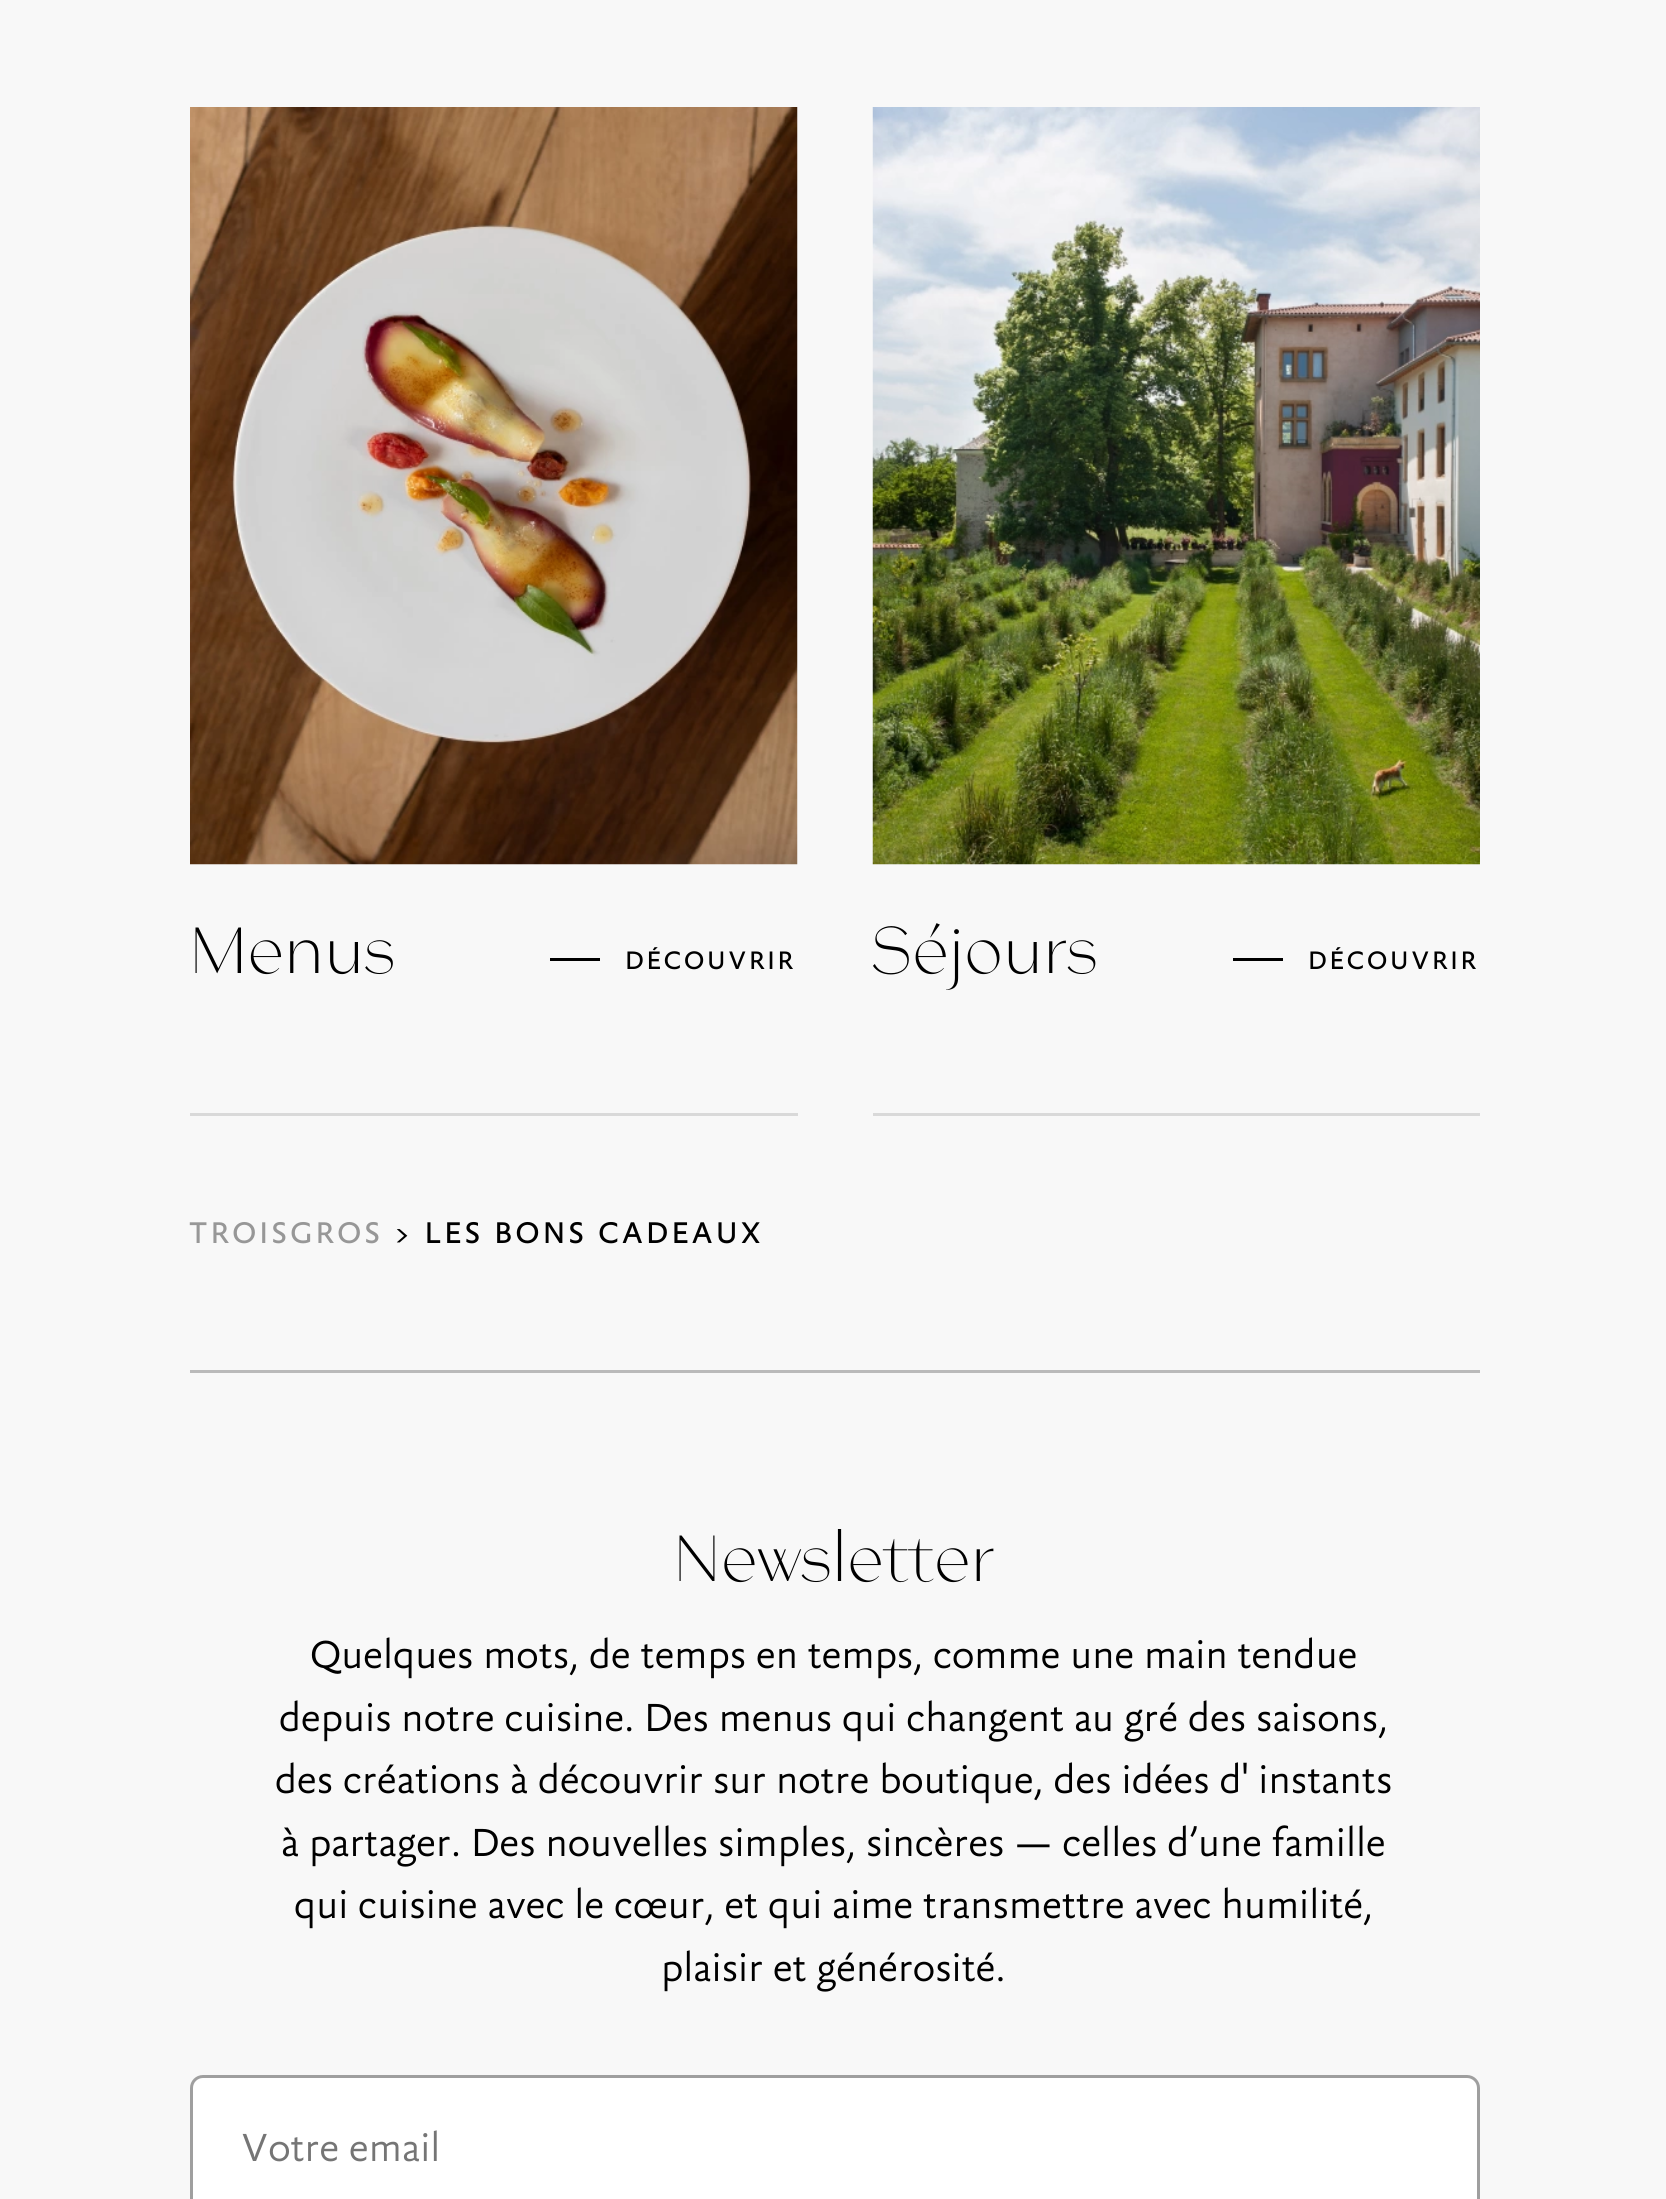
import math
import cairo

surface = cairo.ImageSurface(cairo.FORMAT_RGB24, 1666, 2199)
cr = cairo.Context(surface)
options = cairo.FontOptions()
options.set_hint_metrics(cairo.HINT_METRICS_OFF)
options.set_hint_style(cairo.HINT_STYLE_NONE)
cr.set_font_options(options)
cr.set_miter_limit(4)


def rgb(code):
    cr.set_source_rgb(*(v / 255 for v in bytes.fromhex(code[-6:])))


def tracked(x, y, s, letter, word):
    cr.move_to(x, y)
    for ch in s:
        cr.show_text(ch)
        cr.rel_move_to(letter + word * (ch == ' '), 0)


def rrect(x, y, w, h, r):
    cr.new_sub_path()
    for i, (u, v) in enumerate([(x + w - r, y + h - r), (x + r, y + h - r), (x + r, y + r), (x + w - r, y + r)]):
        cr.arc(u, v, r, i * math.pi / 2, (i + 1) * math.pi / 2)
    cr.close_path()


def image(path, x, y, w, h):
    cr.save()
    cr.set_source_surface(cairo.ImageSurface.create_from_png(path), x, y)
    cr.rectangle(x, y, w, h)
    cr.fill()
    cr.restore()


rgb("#f8f8f8")
cr.paint()
rgb("#d9d9d9")
cr.rectangle(190, 1113, 608, 3)
cr.fill()
image("img/1.png", 190, 107, 608, 758)
rgb("#000000")
cr.rectangle(550, 958, 50, 3)
cr.fill()
rgb("#d9d9d9")
cr.rectangle(873, 1113, 607, 3)
cr.fill()
image("img/2.png", 872, 107, 608, 758)
rgb("#000000")
cr.rectangle(1233, 958, 50, 3)
cr.fill()
rgb("#bababa")
cr.rectangle(190, 1370, 1290, 3)
cr.fill()
rgb("#ffffff")
rrect(191.5, 2076.5, 1287, 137, 11.5)
cr.fill_preserve()
rgb("#9f9f9f")
cr.set_line_width(3)
cr.stroke()
cr.select_font_face("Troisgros")
cr.set_font_size(65)
rgb("#000000")
cr.move_to(189, 973)
cr.show_text("Menus")
cr.select_font_face("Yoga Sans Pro")
cr.set_font_size(27.5)
tracked(625, 969, "DÉCOUVRIR", 2.75, 0)
cr.select_font_face("Troisgros")
cr.set_font_size(65)
cr.move_to(871, 973)
cr.show_text("Séjours")
cr.select_font_face("Yoga Sans Pro")
cr.set_font_size(27.5)
tracked(1308, 969, "DÉCOUVRIR", 2.75, 0)
cr.set_font_size(32.5)
rgb("#979797")
tracked(189, 1243, "TROISGROS", 3.25, 0)
rgb("#000000")
tracked(394, 1243, "> LES BONS CADEAUX", 3.25, 0)
cr.select_font_face("Troisgros")
cr.set_font_size(65)
cr.move_to(673, 1581)
cr.show_text("Newsletter")
cr.select_font_face("Yoga Sans Pro Light")
cr.set_font_size(42.5)
for x, y, s in [
    (310, 1668, "Quelques mots, de temps en temps, comme une main tendue"),
    (279, 1731, "depuis notre cuisine. Des menus qui changent au gré des saisons,"),
    (275, 1793, "des créations à découvrir sur notre boutique, des idées d' instants"),
    (281, 1856, "à partager. Des nouvelles simples, sincères — celles d’une famille"),
    (294, 1918, "qui cuisine avec le cœur, et qui aime transmettre avec humilité,"),
    (661, 1981, "plaisir et générosité."),
]:
    cr.move_to(x, y)
    cr.show_text(s)
rgb("#757575")
cr.move_to(241, 2161)
cr.show_text("Votre email")
surface.write_to_png("page.png")
